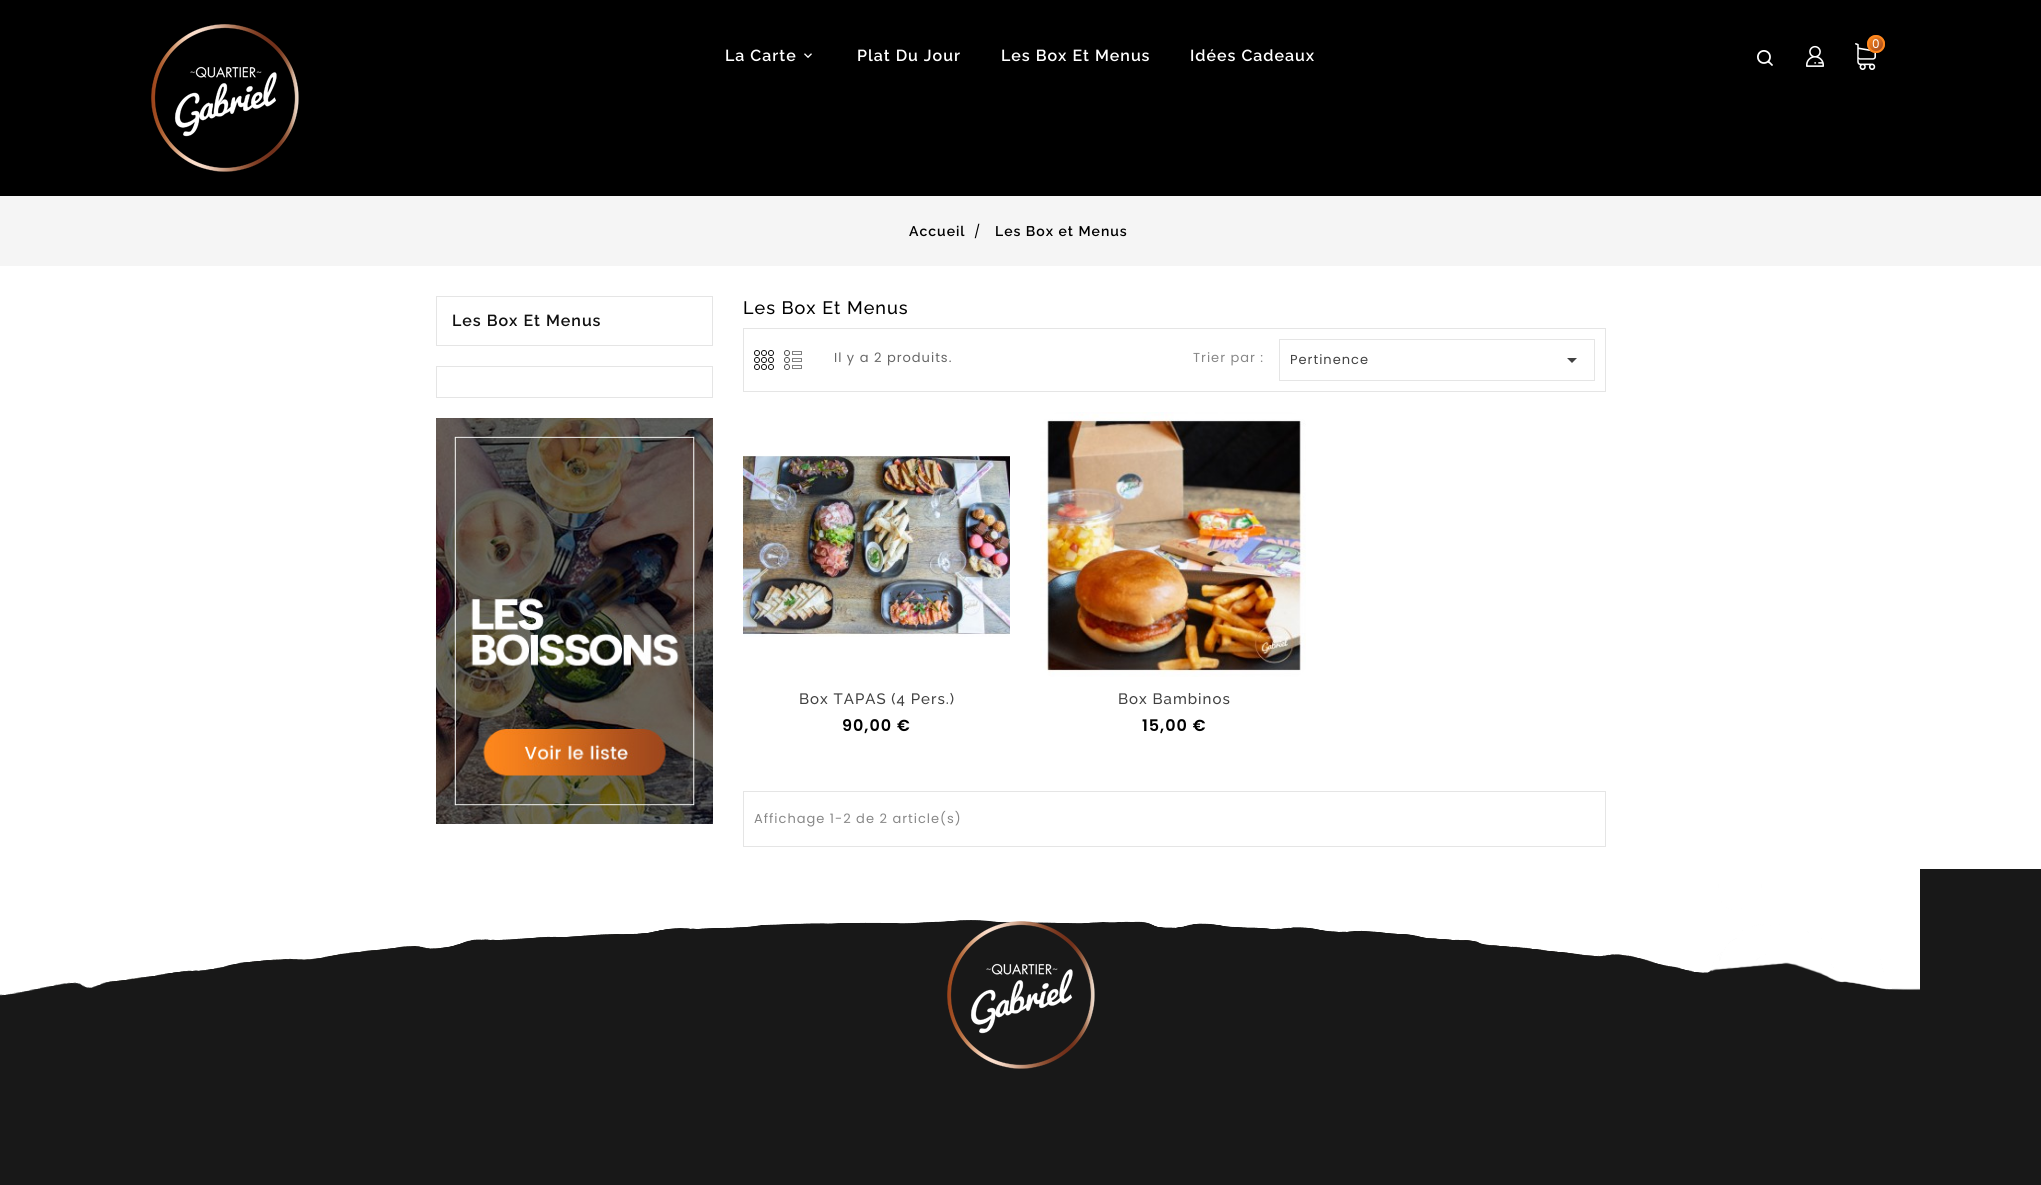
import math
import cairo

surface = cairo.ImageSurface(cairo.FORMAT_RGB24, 2041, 1185)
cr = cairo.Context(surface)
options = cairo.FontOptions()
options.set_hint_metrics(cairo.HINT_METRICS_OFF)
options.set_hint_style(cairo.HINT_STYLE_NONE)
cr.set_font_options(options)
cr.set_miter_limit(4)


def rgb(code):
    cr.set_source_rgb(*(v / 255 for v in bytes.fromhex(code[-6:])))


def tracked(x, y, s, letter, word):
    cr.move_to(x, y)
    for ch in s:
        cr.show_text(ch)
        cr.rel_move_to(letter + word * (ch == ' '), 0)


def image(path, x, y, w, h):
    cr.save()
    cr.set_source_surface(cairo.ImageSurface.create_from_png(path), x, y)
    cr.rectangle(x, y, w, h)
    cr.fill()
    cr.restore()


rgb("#ffffff")
cr.paint()
rgb("#000000")
cr.rectangle(0, 0, 2041, 196)
cr.fill()
image("img/1.png", 151, 24, 148, 148)
image("img/3.png", 1855, 43, 21, 27)
image("img/2.png", 1867, 35, 18, 18)
cr.arc(1876, 44, 8, 0, 2 * math.pi)
rgb("#ff871c")
cr.stroke()
image("img/4.png", 804, 53, 8, 5)
image("img/5.png", 1757, 50, 16, 16)
image("img/6.png", 1806, 45, 18, 22)
rgb("#f5f5f5")
cr.rectangle(0, 196, 2041, 70)
cr.fill()
cr.rectangle(436.5, 296.5, 276, 49)
rgb("#e5e5e5")
cr.set_line_width(1)
cr.stroke()
cr.rectangle(436.5, 366.5, 276, 31)
cr.stroke()
image("img/7.png", 436, 418, 277, 406)
cr.rectangle(743.5, 328.5, 862, 63)
cr.stroke()
image("img/8.png", 754, 350, 20, 20)
image("img/9.png", 784, 350, 18, 20)
cr.rectangle(1279.5, 339.5, 315, 41)
cr.stroke()
rgb("#414141")
cr.new_path()
cr.move_to(1567, 358)
cr.line_to(1577, 358)
cr.line_to(1572, 363)
cr.close_path()
cr.fill()
image("img/10.png", 743, 455, 267, 182)
image("img/11.png", 1040, 412, 266, 265)
cr.rectangle(743.5, 791.5, 862, 55)
rgb("#e5e5e5")
cr.stroke()
rgb("#181818")
cr.rectangle(0, 869, 2041, 316)
cr.fill()
image("img/12.png", 0, 869, 1920, 127)
image("img/13.png", 947, 921, 148, 148)
cr.select_font_face("Poppins")
cr.set_font_size(12)
rgb("#ffffff")
tracked(1872, 48, "0", 1, 0)
cr.select_font_face("Raleway SemiBold")
cr.set_font_size(16)
for x, y, s in [
    (725, 61, "La Carte"),
    (857, 61, "Plat Du Jour"),
    (1001, 61, "Les Box Et Menus"),
    (1190, 61, "Idées Cadeaux"),
]:
    tracked(x, y, s, 1, 0)
cr.set_font_size(14)
rgb("#000000")
tracked(909, 236, "Accueil", 1, 0)
cr.select_font_face("Poppins")
cr.set_font_size(13)
tracked(974, 236, "/", 1, 0)
cr.select_font_face("Raleway SemiBold")
cr.set_font_size(14)
tracked(995, 236, "Les Box et Menus", 1, 0)
cr.set_font_size(16)
rgb("#111111")
tracked(452, 326, "Les Box Et Menus", 1, 0)
cr.select_font_face("Raleway Medium")
cr.set_font_size(18)
rgb("#000000")
tracked(743, 314, "Les Box Et Menus", 1, 0)
cr.select_font_face("Poppins")
cr.set_font_size(13)
rgb("#666666")
tracked(834, 362, "Il y a 2 produits.", 1, 0)
rgb("#878787")
tracked(1193, 362, "Trier par :", 1, 0)
rgb("#414141")
tracked(1290, 364, "Pertinence", 1, 0)
cr.select_font_face("Raleway Medium")
cr.set_font_size(15)
tracked(799, 704, "Box TAPAS (4 Pers.)", 1, 0)
cr.select_font_face("Poppins SemiBold")
cr.set_font_size(16)
rgb("#000000")
tracked(842, 731, "90,00 €", 1, 0)
cr.select_font_face("Raleway Medium")
cr.set_font_size(15)
rgb("#414141")
tracked(1118, 704, "Box Bambinos", 1, 0)
cr.select_font_face("Poppins SemiBold")
cr.set_font_size(16)
rgb("#000000")
tracked(1142, 731, "15,00 €", 1, 0)
cr.select_font_face("Poppins")
cr.set_font_size(13)
rgb("#878787")
tracked(754, 823, "Affichage 1-2 de 2 article(s)", 1, 0)
surface.write_to_png("page.png")
